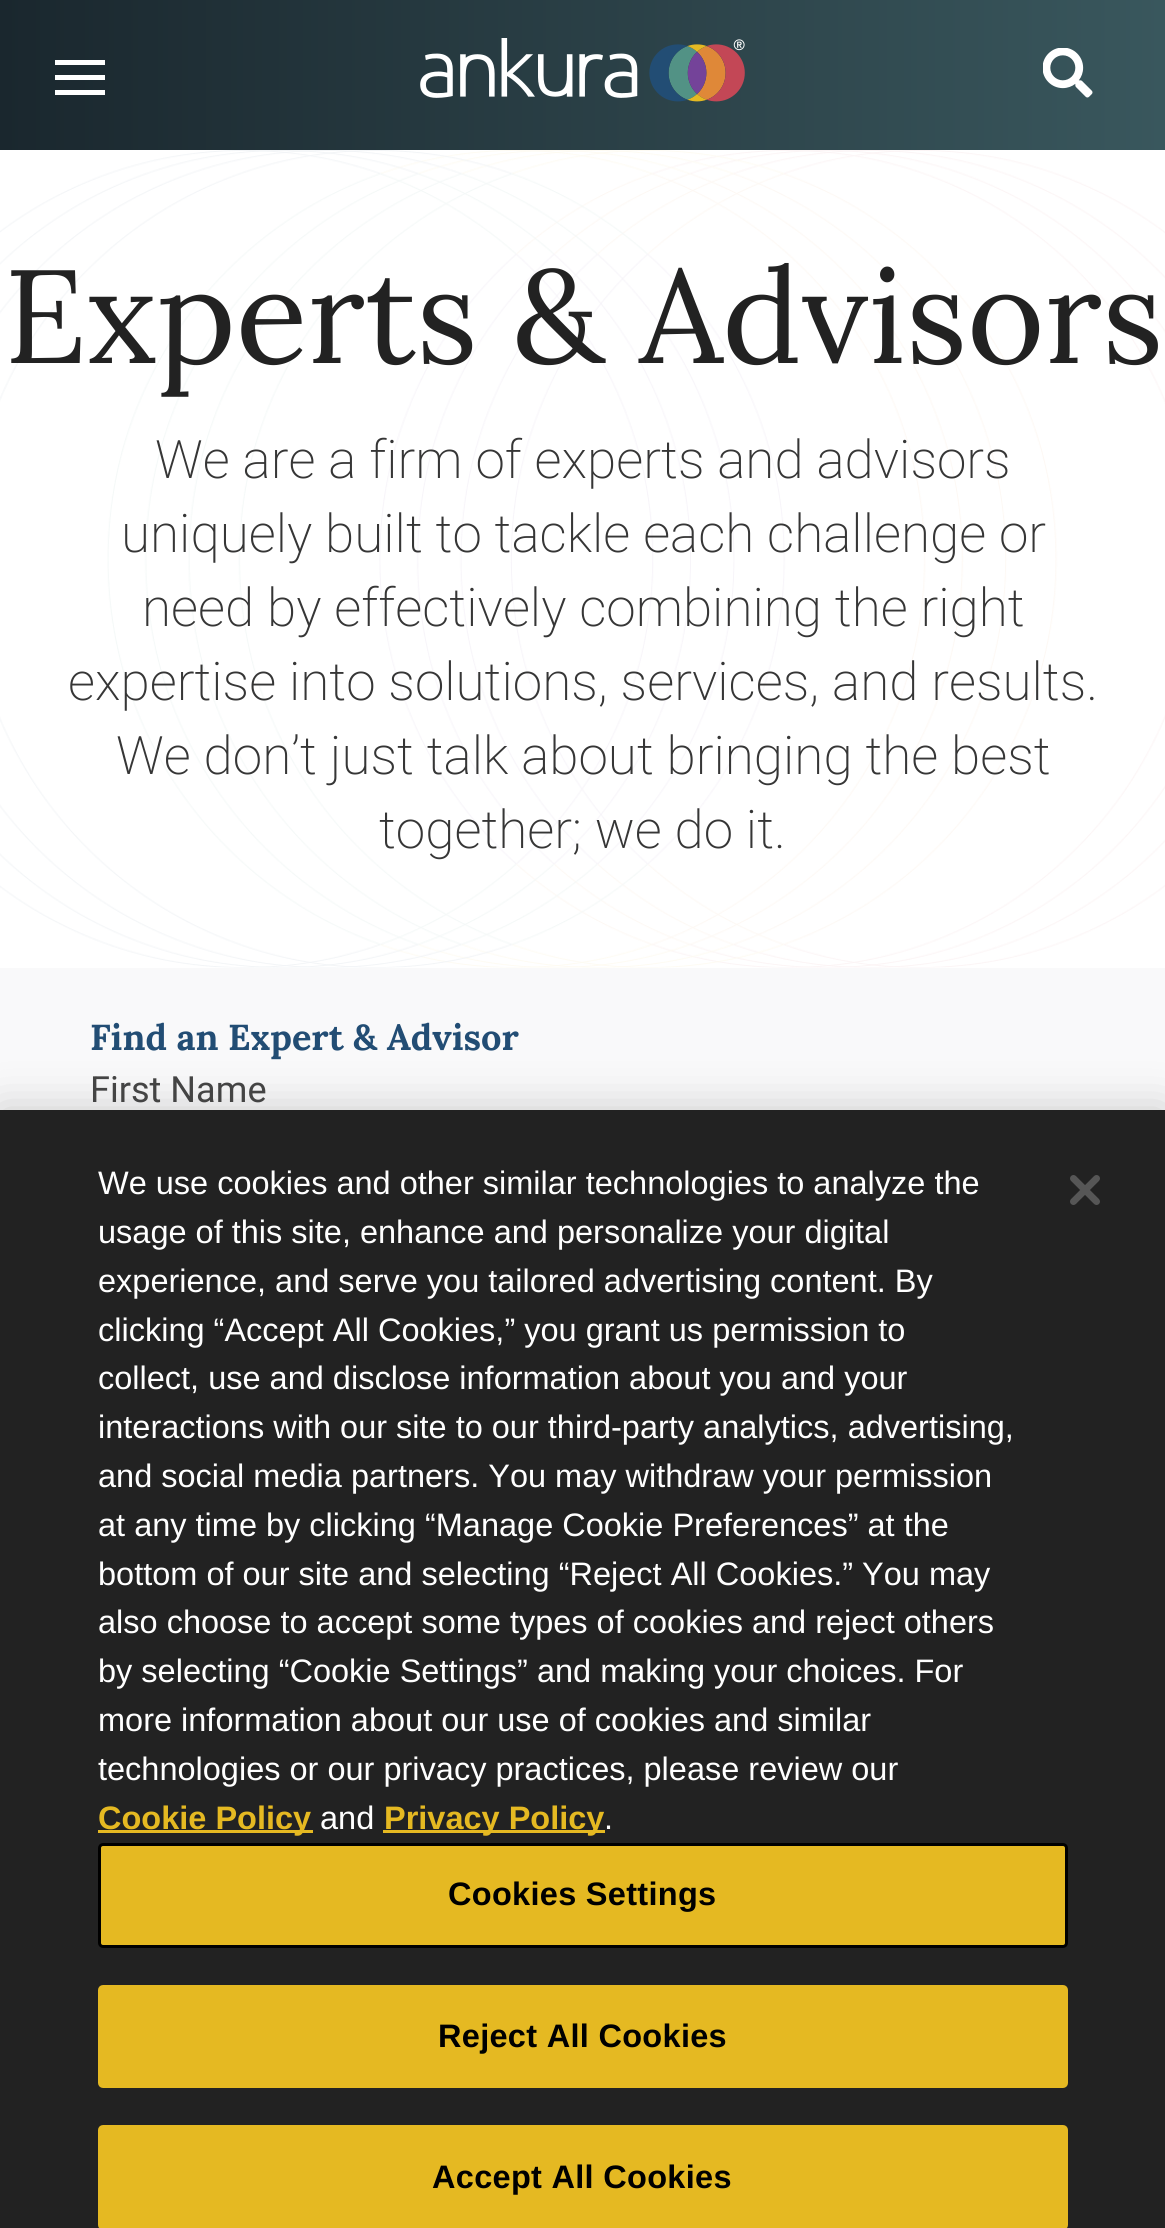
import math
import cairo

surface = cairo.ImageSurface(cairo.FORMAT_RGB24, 1165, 2228)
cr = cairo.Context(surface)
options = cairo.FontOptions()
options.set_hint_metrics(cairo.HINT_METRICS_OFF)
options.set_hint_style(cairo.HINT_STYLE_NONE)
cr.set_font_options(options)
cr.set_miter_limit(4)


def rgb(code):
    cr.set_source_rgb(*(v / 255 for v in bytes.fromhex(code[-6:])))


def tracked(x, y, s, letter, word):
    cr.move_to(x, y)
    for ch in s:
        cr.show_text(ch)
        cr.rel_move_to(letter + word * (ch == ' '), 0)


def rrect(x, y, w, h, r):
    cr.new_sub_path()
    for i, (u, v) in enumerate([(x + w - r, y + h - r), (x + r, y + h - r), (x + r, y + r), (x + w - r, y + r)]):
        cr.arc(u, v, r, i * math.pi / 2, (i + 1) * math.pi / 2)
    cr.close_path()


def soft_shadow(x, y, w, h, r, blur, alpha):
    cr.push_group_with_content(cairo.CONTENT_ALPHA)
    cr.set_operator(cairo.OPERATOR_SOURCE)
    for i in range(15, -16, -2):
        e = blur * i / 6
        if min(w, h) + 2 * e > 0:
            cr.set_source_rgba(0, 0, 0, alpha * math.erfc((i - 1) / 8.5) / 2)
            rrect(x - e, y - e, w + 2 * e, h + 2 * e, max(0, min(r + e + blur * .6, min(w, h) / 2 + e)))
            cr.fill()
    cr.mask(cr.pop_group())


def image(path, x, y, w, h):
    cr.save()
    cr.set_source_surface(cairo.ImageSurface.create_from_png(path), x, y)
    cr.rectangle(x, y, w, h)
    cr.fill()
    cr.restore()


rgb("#ffffff")
cr.paint()
gradient = cairo.LinearGradient(0, 75, 1165, 75)
gradient.add_color_stop_rgba(0, 0.102, 0.153, 0.18, 1)
gradient.add_color_stop_rgba(1, 0.224, 0.341, 0.365, 1)
cr.set_source(gradient)
cr.rectangle(0, 0, 1165, 150)
cr.fill()
image("img/1.png", 420, 38, 325, 64)
for x, y, w, h, color in [
    (55, 60, 50, 5, "#ffffff"),
    (55, 75, 50, 5, "#ffffff"),
    (55, 90, 50, 5, "#ffffff"),
]:
    rgb(color)
    cr.rectangle(x, y, w, h)
    cr.fill()
image("img/2.png", 1043, 48, 50, 50)
image("img/3.png", 0, 150, 1165, 818)
rgb("#f9f9fa")
cr.rectangle(0, 968, 1165, 142)
cr.fill()
rgb("#000000")
soft_shadow(0, 1110, 1165, 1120, 0, 22.5, 0.2)
for x, y, w, h, color in [
    (0, 1110, 1165, 1118, "#222222"),
    (98, 1830, 215, 3, "#e5b922"),
    (383, 1830, 222, 3, "#e5b922"),
]:
    rgb(color)
    cr.rectangle(x, y, w, h)
    cr.fill()
rrect(99.5, 1844.5, 967, 102, 3.5)
cr.fill_preserve()
rgb("#000000")
cr.set_line_width(3)
cr.stroke()
rgb("#e5b922")
rrect(99.5, 1986.5, 967, 100, 3.5)
cr.fill_preserve()
cr.stroke()
rrect(99.5, 2126.5, 967, 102, 3.5)
cr.fill_preserve()
cr.stroke()
image("img/4.png", 1070, 1175, 30, 30)
cr.select_font_face("Lora")
cr.set_font_size(132.5)
rgb("#222222")
cr.move_to(4, 363)
cr.show_text("Experts & Advisors")
cr.select_font_face("Roboto ExtraLight")
cr.set_font_size(53)
rgb("#363636")
for x, y, s in [
    (155, 478, "We are a firm of experts and advisors"),
    (121, 552, "uniquely built to tackle each challenge or"),
    (142, 626, "need by effectively combining the right"),
    (68, 700, "expertise into solutions, services, and results."),
    (116, 774, "We don’t just talk about bringing the best"),
    (379, 848, "together; we do it."),
]:
    cr.move_to(x, y)
    cr.show_text(s)
cr.select_font_face("Lora", cairo.FONT_SLANT_NORMAL, cairo.FONT_WEIGHT_BOLD)
cr.set_font_size(36.1)
rgb("#224d74")
cr.move_to(90, 1050)
cr.show_text("Find an Expert & Advisor")
cr.select_font_face("Roboto")
rgb("#444444")
cr.move_to(90, 1102)
cr.show_text("First Name")
cr.select_font_face("Liberation Sans")
cr.set_font_size(32.5)
rgb("#ffffff")
for x, y, s in [
    (98, 1194, "We use cookies and other similar technologies to analyze the"),
    (98, 1243, "usage of this site, enhance and personalize your digital"),
    (98, 1292, "experience, and serve you tailored advertising content. By"),
    (98, 1341, "clicking “Accept All Cookies,” you grant us permission to"),
    (98, 1389, "collect, use and disclose information about you and your"),
    (98, 1438, "interactions with our site to our third-party analytics, advertising,"),
    (98, 1487, "and social media partners. You may withdraw your permission"),
    (98, 1536, "at any time by clicking “Manage Cookie Preferences” at the"),
    (98, 1585, "bottom of our site and selecting “Reject All Cookies.” You may"),
    (98, 1633, "also choose to accept some types of cookies and reject others"),
    (98, 1682, "by selecting “Cookie Settings” and making your choices. For"),
    (98, 1731, "more information about our use of cookies and similar"),
    (98, 1780, "technologies or our privacy practices, please review our"),
]:
    cr.move_to(x, y)
    cr.show_text(s)
cr.select_font_face("Liberation Sans", cairo.FONT_SLANT_NORMAL, cairo.FONT_WEIGHT_BOLD)
rgb("#e5b922")
cr.move_to(98, 1829)
cr.show_text("Cookie Policy")
cr.select_font_face("Liberation Sans")
rgb("#ffffff")
cr.move_to(320, 1829)
cr.show_text("and")
cr.select_font_face("Liberation Sans", cairo.FONT_SLANT_NORMAL, cairo.FONT_WEIGHT_BOLD)
rgb("#e5b922")
cr.move_to(384, 1829)
cr.show_text("Privacy Policy")
cr.select_font_face("Liberation Sans")
rgb("#ffffff")
cr.move_to(604, 1829)
cr.show_text(".")
cr.select_font_face("Liberation Sans", cairo.FONT_SLANT_NORMAL, cairo.FONT_WEIGHT_BOLD)
rgb("#000000")
for x, y, s in [
    (448, 1905, "Cookies Settings"),
    (438, 2047, "Reject All Cookies"),
    (432, 2188, "Accept All Cookies"),
]:
    tracked(x, y, s, 0.3, 0)
surface.write_to_png("page.png")
